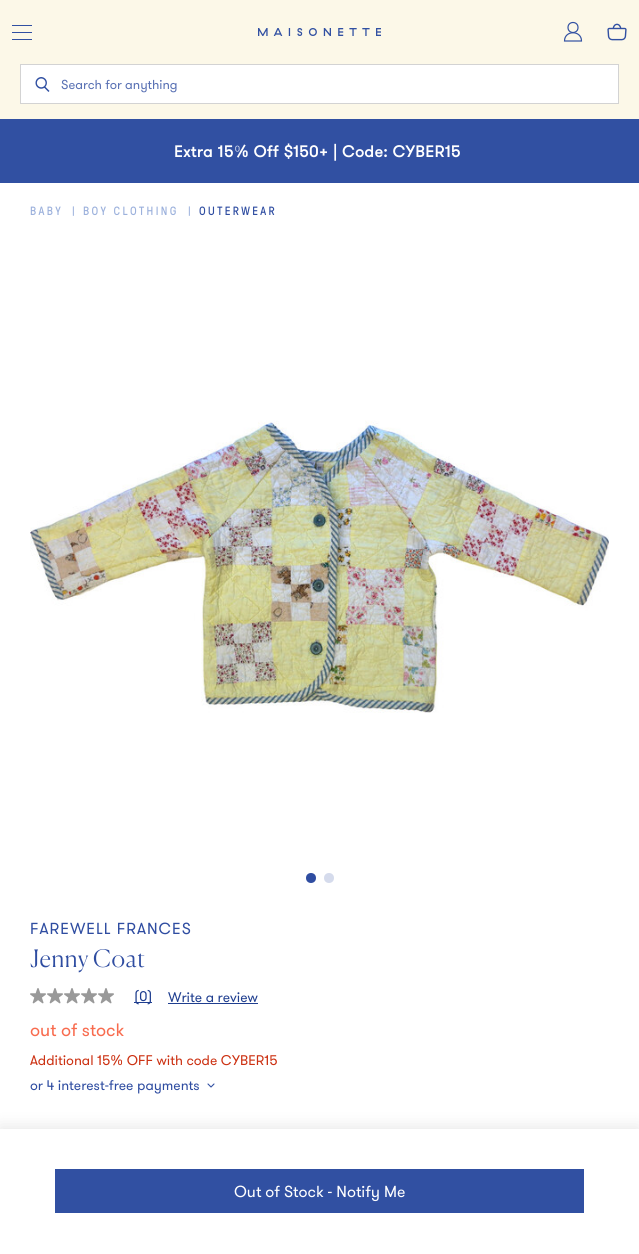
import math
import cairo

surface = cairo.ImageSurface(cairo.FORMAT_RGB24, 639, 1254)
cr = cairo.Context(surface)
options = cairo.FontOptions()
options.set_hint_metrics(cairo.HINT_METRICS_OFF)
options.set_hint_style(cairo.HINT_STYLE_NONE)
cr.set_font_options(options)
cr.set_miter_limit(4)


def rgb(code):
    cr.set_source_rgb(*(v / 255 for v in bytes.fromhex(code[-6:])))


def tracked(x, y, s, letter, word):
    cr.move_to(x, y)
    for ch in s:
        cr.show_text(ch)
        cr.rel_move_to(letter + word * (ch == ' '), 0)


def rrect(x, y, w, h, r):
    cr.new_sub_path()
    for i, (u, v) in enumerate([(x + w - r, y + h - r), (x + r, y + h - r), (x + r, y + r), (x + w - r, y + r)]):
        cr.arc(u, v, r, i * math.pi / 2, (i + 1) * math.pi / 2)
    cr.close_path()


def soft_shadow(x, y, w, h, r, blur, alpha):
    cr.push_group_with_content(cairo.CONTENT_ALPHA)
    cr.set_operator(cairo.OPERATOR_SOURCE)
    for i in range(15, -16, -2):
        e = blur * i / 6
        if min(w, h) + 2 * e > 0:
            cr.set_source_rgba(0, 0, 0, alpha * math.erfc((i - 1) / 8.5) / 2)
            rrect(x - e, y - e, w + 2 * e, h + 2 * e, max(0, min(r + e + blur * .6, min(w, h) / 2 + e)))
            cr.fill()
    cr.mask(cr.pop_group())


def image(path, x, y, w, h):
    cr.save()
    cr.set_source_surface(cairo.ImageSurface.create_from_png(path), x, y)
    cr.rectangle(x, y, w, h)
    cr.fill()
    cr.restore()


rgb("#ffffff")
cr.paint()
for x, y, w, h, color in [
    (0, 0, 639, 119, "#fcf8e8"),
    (12, 32, 20, 1, "#3150a2"),
    (12, 25, 20, 1, "#3150a2"),
    (12, 39, 20, 1, "#3150a2"),
]:
    rgb(color)
    cr.rectangle(x, y, w, h)
    cr.fill()
image("img/1.png", 258, 28, 123, 8)
cr.arc(573, 27.5, 5, 0, 2 * math.pi)
cr.set_line_width(1.2)
cr.stroke()
cr.new_path()
cr.move_to(581.5, 41)
cr.curve_to(581.5, 30, 564.5, 30, 564.5, 41)
cr.close_path()
cr.stroke()
image("img/2.png", 607, 23, 20, 18)
rgb("#ffffff")
cr.rectangle(20.5, 64.5, 598, 39)
cr.fill_preserve()
rgb("#d3d3d3")
cr.set_line_width(1)
cr.stroke()
image("img/3.png", 35, 77, 15, 15)
rgb("#3150a2")
cr.rectangle(0, 119, 639, 64)
cr.fill()
image("img/4.png", 30, 420, 579, 293)
rgb("#2f4da1")
cr.arc(311, 878, 5, 0, 2 * math.pi)
cr.fill()
rgb("#d5dbec")
cr.arc(329, 878, 5, 0, 2 * math.pi)
cr.fill()
image("img/5.png", 30, 988, 16, 16)
image("img/5.png", 47, 988, 16, 16)
image("img/5.png", 64, 988, 16, 16)
image("img/5.png", 81, 988, 16, 16)
image("img/5.png", 98, 988, 16, 16)
rgb("#1f3e8f")
cr.rectangle(134, 1002, 18, 1)
cr.fill()
cr.rectangle(168, 1003, 90, 1)
cr.fill()
cr.new_path()
cr.move_to(208, 1084)
cr.line_to(211, 1087)
cr.line_to(214, 1084)
rgb("#3150a2")
cr.set_line_width(1.1)
cr.set_line_cap(cairo.LINE_CAP_ROUND)
cr.set_line_join(cairo.LINE_JOIN_ROUND)
cr.stroke()
rgb("#000000")
soft_shadow(0, 1127, 639, 125, 0, 8, 0.1)
rgb("#ffffff")
cr.rectangle(0, 1129, 639, 125)
cr.fill()
rgb("#3150a2")
cr.rectangle(55, 1169, 529, 44)
cr.fill()
cr.select_font_face("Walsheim")
cr.set_font_size(13)
rgb("#5971b4")
cr.move_to(61, 89)
cr.show_text("Search for anything")
cr.select_font_face("Walsheim", cairo.FONT_SLANT_NORMAL, cairo.FONT_WEIGHT_BOLD)
cr.set_font_size(16)
rgb("#ffffff")
tracked(174, 157, "Extra 15% Off $150+ | Code: CYBER15", 0.5, 0)
cr.select_font_face("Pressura")
cr.set_font_size(12)
rgb("#9cb1dc")
tracked(30, 215, "BABY", 2.4, 0)
cr.move_to(72, 215)
cr.show_text("|")
tracked(83, 215, "BOY CLOTHING", 2.4, 0)
cr.move_to(188, 215)
cr.show_text("|")
rgb("#2f4da1")
tracked(199, 215, "OUTERWEAR", 2.4, 0)
cr.select_font_face("Walsheim")
cr.set_font_size(16)
tracked(30, 934, "FAREWELL FRANCES", 1, 0)
cr.select_font_face("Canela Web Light")
cr.set_font_size(24)
tracked(30, 967, "Jenny Coat", 0.5, 0)
cr.select_font_face("Walsheim")
cr.set_font_size(14)
rgb("#1f3e8f")
cr.move_to(134, 1001)
cr.show_text("(0)")
cr.move_to(168, 1002)
cr.show_text("Write a review")
cr.set_font_size(18)
rgb("#f86b4e")
cr.move_to(30, 1036)
cr.show_text("out of stock")
cr.set_font_size(14)
rgb("#cc3112")
cr.move_to(30, 1065)
cr.show_text("Additional 15% OFF with code CYBER15")
rgb("#2f4da1")
cr.move_to(30, 1090)
cr.show_text("or 4 interest-free payments")
cr.set_font_size(16)
rgb("#ffffff")
cr.move_to(234, 1197)
cr.show_text("Out of Stock - Notify Me")
surface.write_to_png("page.png")
